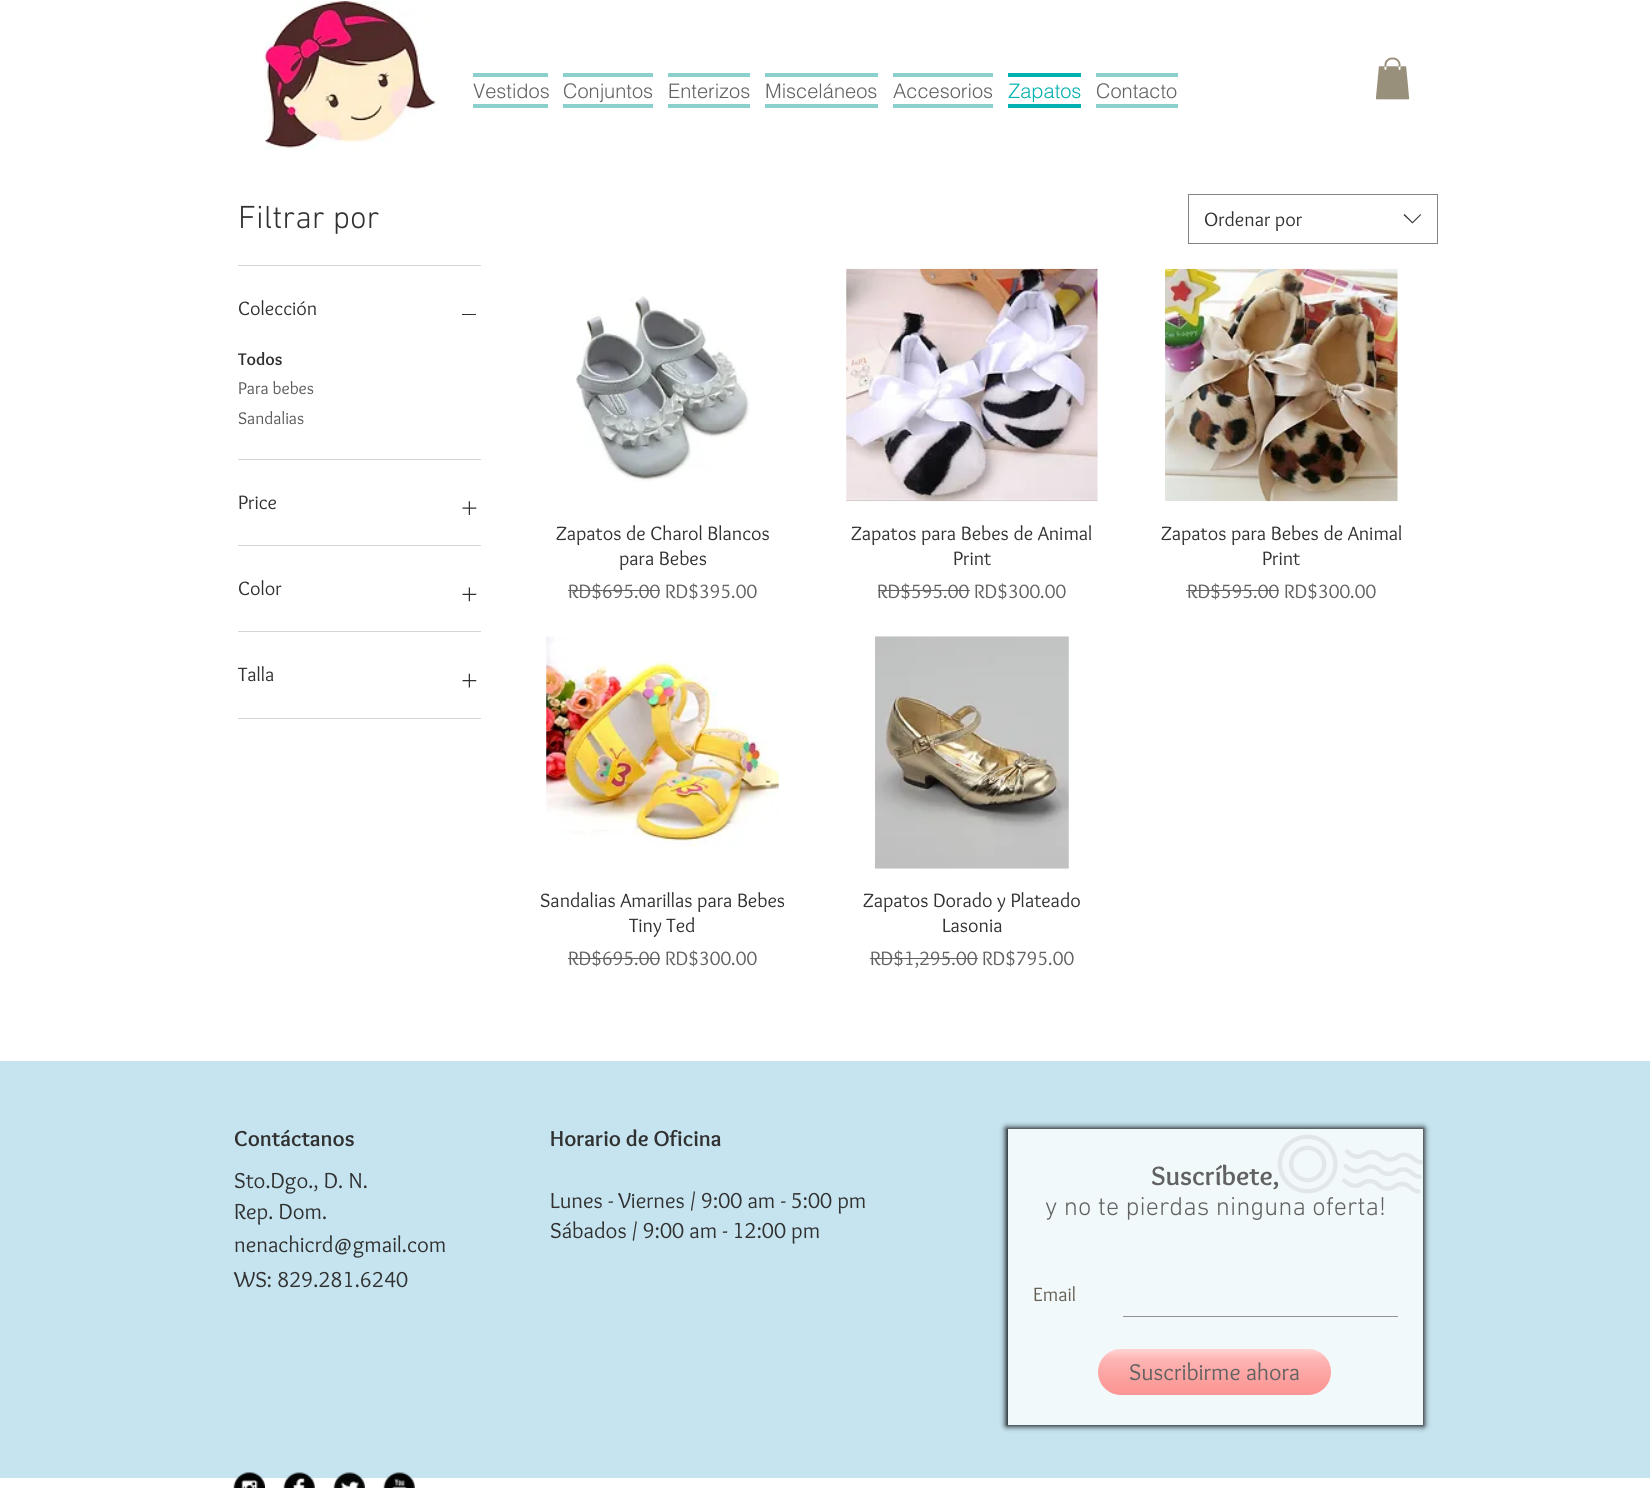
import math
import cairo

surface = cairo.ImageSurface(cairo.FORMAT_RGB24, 1650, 1488)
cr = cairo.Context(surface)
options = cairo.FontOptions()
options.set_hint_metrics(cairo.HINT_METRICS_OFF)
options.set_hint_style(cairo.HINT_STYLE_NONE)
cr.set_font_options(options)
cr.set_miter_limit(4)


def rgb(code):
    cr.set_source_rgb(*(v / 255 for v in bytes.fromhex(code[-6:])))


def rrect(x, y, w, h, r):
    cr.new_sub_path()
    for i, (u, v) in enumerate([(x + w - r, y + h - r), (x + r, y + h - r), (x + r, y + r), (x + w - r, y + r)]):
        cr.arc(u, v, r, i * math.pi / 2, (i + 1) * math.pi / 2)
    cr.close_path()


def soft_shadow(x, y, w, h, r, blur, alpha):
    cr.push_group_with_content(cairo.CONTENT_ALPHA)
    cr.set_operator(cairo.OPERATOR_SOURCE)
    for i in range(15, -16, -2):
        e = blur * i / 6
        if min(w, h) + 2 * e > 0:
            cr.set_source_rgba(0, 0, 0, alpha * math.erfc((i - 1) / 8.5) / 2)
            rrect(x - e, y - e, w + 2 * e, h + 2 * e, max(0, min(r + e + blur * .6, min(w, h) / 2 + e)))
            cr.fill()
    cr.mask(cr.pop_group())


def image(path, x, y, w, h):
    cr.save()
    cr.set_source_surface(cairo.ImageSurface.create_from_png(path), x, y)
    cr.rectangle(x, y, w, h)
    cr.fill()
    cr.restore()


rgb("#ffffff")
cr.paint()
image("img/1.png", 263, 1, 176, 149)
for x, y, w, h, color in [
    (473, 73, 75, 4, "#8bd0cd"),
    (473, 104, 75, 4, "#8bd0cd"),
    (563, 73, 90, 4, "#8bd0cd"),
    (563, 104, 90, 4, "#8bd0cd"),
    (668, 73, 82, 4, "#8bd0cd"),
    (668, 104, 82, 4, "#8bd0cd"),
    (765, 73, 113, 4, "#8bd0cd"),
    (765, 104, 113, 4, "#8bd0cd"),
    (893, 73, 100, 4, "#8bd0cd"),
    (893, 104, 100, 4, "#8bd0cd"),
    (1008, 73, 73, 4, "#01b1af"),
    (1008, 104, 73, 4, "#01b1af"),
    (1096, 73, 82, 4, "#8bd0cd"),
    (1096, 104, 82, 4, "#8bd0cd"),
]:
    rgb(color)
    cr.rectangle(x, y, w, h)
    cr.fill()
image("img/2.png", 1375, 57, 35, 43)
for x, y, w, h, color in [
    (238, 265, 243, 1, "#d6d6d6"),
    (238, 459, 243, 1, "#d6d6d6"),
    (462, 314, 14, 1, "#313131"),
    (238, 545, 243, 1, "#d6d6d6"),
]:
    rgb(color)
    cr.rectangle(x, y, w, h)
    cr.fill()
image("img/3.png", 462, 501, 15, 14)
cr.rectangle(238, 631, 243, 1)
cr.fill()
image("img/4.png", 462, 587, 15, 15)
cr.rectangle(238, 718, 243, 1)
cr.fill()
image("img/5.png", 462, 673, 15, 15)
cr.rectangle(1188.5, 194.5, 249, 49)
rgb("#838383")
cr.set_line_width(1)
cr.stroke()
rgb("#313131")
cr.set_fill_rule(cairo.FILL_RULE_EVEN_ODD)
cr.new_path()
cr.move_to(1420.5, 214)
cr.line_to(1421, 215)
cr.line_to(1412.5, 223.5)
cr.line_to(1403.5, 215)
cr.line_to(1404.5, 214)
cr.line_to(1412.5, 222)
cr.close_path()
cr.fill()
image("img/6.png", 576, 296, 174, 186)
rgb("#626262")
cr.rectangle(568, 590, 92, 1)
cr.fill()
image("img/7.png", 846, 268, 252, 234)
cr.rectangle(878, 590, 92, 1)
cr.fill()
image("img/8.png", 1165, 268, 233, 234)
cr.rectangle(1186, 590, 93, 1)
cr.fill()
image("img/9.png", 546, 636, 233, 211)
cr.rectangle(568, 958, 92, 1)
cr.fill()
image("img/10.png", 875, 636, 194, 233)
cr.rectangle(870, 958, 108, 1)
cr.fill()
rgb("#c5e4ef")
cr.rectangle(0, 1061, 1650, 417)
cr.fill()
cr.save()
cr.new_path()
cr.move_to(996, 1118)
cr.line_to(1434, 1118)
cr.line_to(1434, 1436)
cr.line_to(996, 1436)
cr.close_path()
cr.move_to(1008, 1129)
cr.line_to(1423, 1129)
cr.line_to(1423, 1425)
cr.line_to(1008, 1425)
cr.close_path()
cr.clip()
rgb("#000000")
soft_shadow(1006, 1128, 418, 298, 0, 3, 1)
cr.restore()
cr.set_source_rgba(1, 1, 1, 0.77)
cr.rectangle(1008, 1129, 415, 296)
cr.fill()
image("img/11.png", 1277, 1134, 146, 60)
rgb("#939393")
cr.rectangle(1123, 1316, 275, 1)
cr.fill()
rgb("#fc8f8d")
rrect(1098, 1349, 233, 46, 23)
cr.fill()
image("img/12.png", 1098, 1349, 233, 46)
image("img/13.png", 233, 1472, 32, 16)
image("img/14.png", 283, 1472, 32, 16)
image("img/15.png", 333, 1472, 32, 16)
image("img/16.png", 383, 1472, 32, 16)
cr.select_font_face("helvetica Light")
cr.set_font_size(20)
rgb("#626262")
for x, y, s in [
    (473, 98, "Vestidos"),
    (563, 98, "Conjuntos"),
    (668, 98, "Enterizos"),
    (765, 98, "Misceláneos"),
    (893, 98, "Accesorios"),
]:
    cr.move_to(x, y)
    cr.show_text(s)
rgb("#01b1af")
cr.move_to(1008, 98)
cr.show_text("Zapatos")
rgb("#626262")
cr.move_to(1096, 98)
cr.show_text("Contacto")
cr.select_font_face("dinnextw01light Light")
cr.set_font_size(32.5)
rgb("#313131")
cr.move_to(238, 228)
cr.show_text("Filtrar por")
cr.select_font_face("Overlock")
cr.set_font_size(20)
cr.move_to(238, 315)
cr.show_text("Colección")
cr.select_font_face("Overlock", cairo.FONT_SLANT_NORMAL, cairo.FONT_WEIGHT_BOLD)
cr.set_font_size(17.5)
cr.move_to(238, 365)
cr.show_text("Todos")
cr.select_font_face("Overlock")
rgb("#5a5a5a")
cr.move_to(238, 394)
cr.show_text("Para bebes")
cr.move_to(238, 424)
cr.show_text("Sandalias")
cr.set_font_size(20)
rgb("#313131")
for x, y, s in [
    (238, 509, "Price"),
    (238, 595, "Color"),
    (238, 681, "Talla"),
    (1204, 226, "Ordenar por"),
    (556, 540, "Zapatos de Charol Blancos"),
    (619, 565, "para Bebes"),
]:
    cr.move_to(x, y)
    cr.show_text(s)
rgb("#626262")
cr.move_to(568, 598)
cr.show_text("RD$695.00")
cr.move_to(665, 598)
cr.show_text("RD$395.00")
rgb("#313131")
cr.move_to(851, 540)
cr.show_text("Zapatos para Bebes de Animal")
cr.move_to(953, 565)
cr.show_text("Print")
rgb("#626262")
cr.move_to(877, 598)
cr.show_text("RD$595.00")
cr.move_to(974, 598)
cr.show_text("RD$300.00")
rgb("#313131")
cr.move_to(1161, 540)
cr.show_text("Zapatos para Bebes de Animal")
cr.move_to(1262, 565)
cr.show_text("Print")
rgb("#626262")
cr.move_to(1187, 598)
cr.show_text("RD$595.00")
cr.move_to(1284, 598)
cr.show_text("RD$300.00")
rgb("#313131")
cr.move_to(540, 907)
cr.show_text("Sandalias Amarillas para Bebes")
cr.move_to(629, 932)
cr.show_text("Tiny Ted")
rgb("#626262")
cr.move_to(568, 965)
cr.show_text("RD$695.00")
cr.move_to(665, 965)
cr.show_text("RD$300.00")
rgb("#313131")
cr.move_to(863, 907)
cr.show_text("Zapatos Dorado y Plateado")
cr.move_to(942, 932)
cr.show_text("Lasonia")
rgb("#626262")
cr.move_to(870, 965)
cr.show_text("RD$1,295.00")
cr.move_to(982, 965)
cr.show_text("RD$795.00")
cr.select_font_face("Overlock", cairo.FONT_SLANT_NORMAL, cairo.FONT_WEIGHT_BOLD)
cr.set_font_size(22.5)
rgb("#313131")
cr.move_to(234, 1146)
cr.show_text("Contáctanos")
cr.select_font_face("Overlock")
for x, y, s in [
    (234, 1188, "Sto.Dgo., D. N."),
    (234, 1219, "Rep. Dom."),
    (234, 1252, "nenachicrd@gmail.com"),
    (234, 1287, "WS: 829.281.6240"),
]:
    cr.move_to(x, y)
    cr.show_text(s)
cr.select_font_face("Overlock", cairo.FONT_SLANT_NORMAL, cairo.FONT_WEIGHT_BOLD)
cr.move_to(550, 1146)
cr.show_text("Horario de Oficina")
cr.select_font_face("Overlock")
cr.move_to(550, 1208)
cr.show_text("Lunes - Viernes / 9:00 am - 5:00 pm")
cr.move_to(550, 1238)
cr.show_text("Sábados / 9:00 am - 12:00 pm")
cr.select_font_face("Overlock", cairo.FONT_SLANT_NORMAL, cairo.FONT_WEIGHT_BOLD)
cr.set_font_size(27.5)
rgb("#626262")
cr.move_to(1151, 1185)
cr.show_text("Suscríbete,")
cr.select_font_face("dinnextw01light Light")
cr.set_font_size(26.25)
cr.move_to(1045, 1215)
cr.show_text("y no te pierdas ninguna oferta!")
cr.select_font_face("Overlock")
cr.set_font_size(20)
rgb("#666053")
cr.move_to(1033, 1301)
cr.show_text("Email")
cr.set_font_size(23.75)
rgb("#626262")
cr.move_to(1129, 1380)
cr.show_text("Suscribirme ahora")
surface.write_to_png("page.png")
